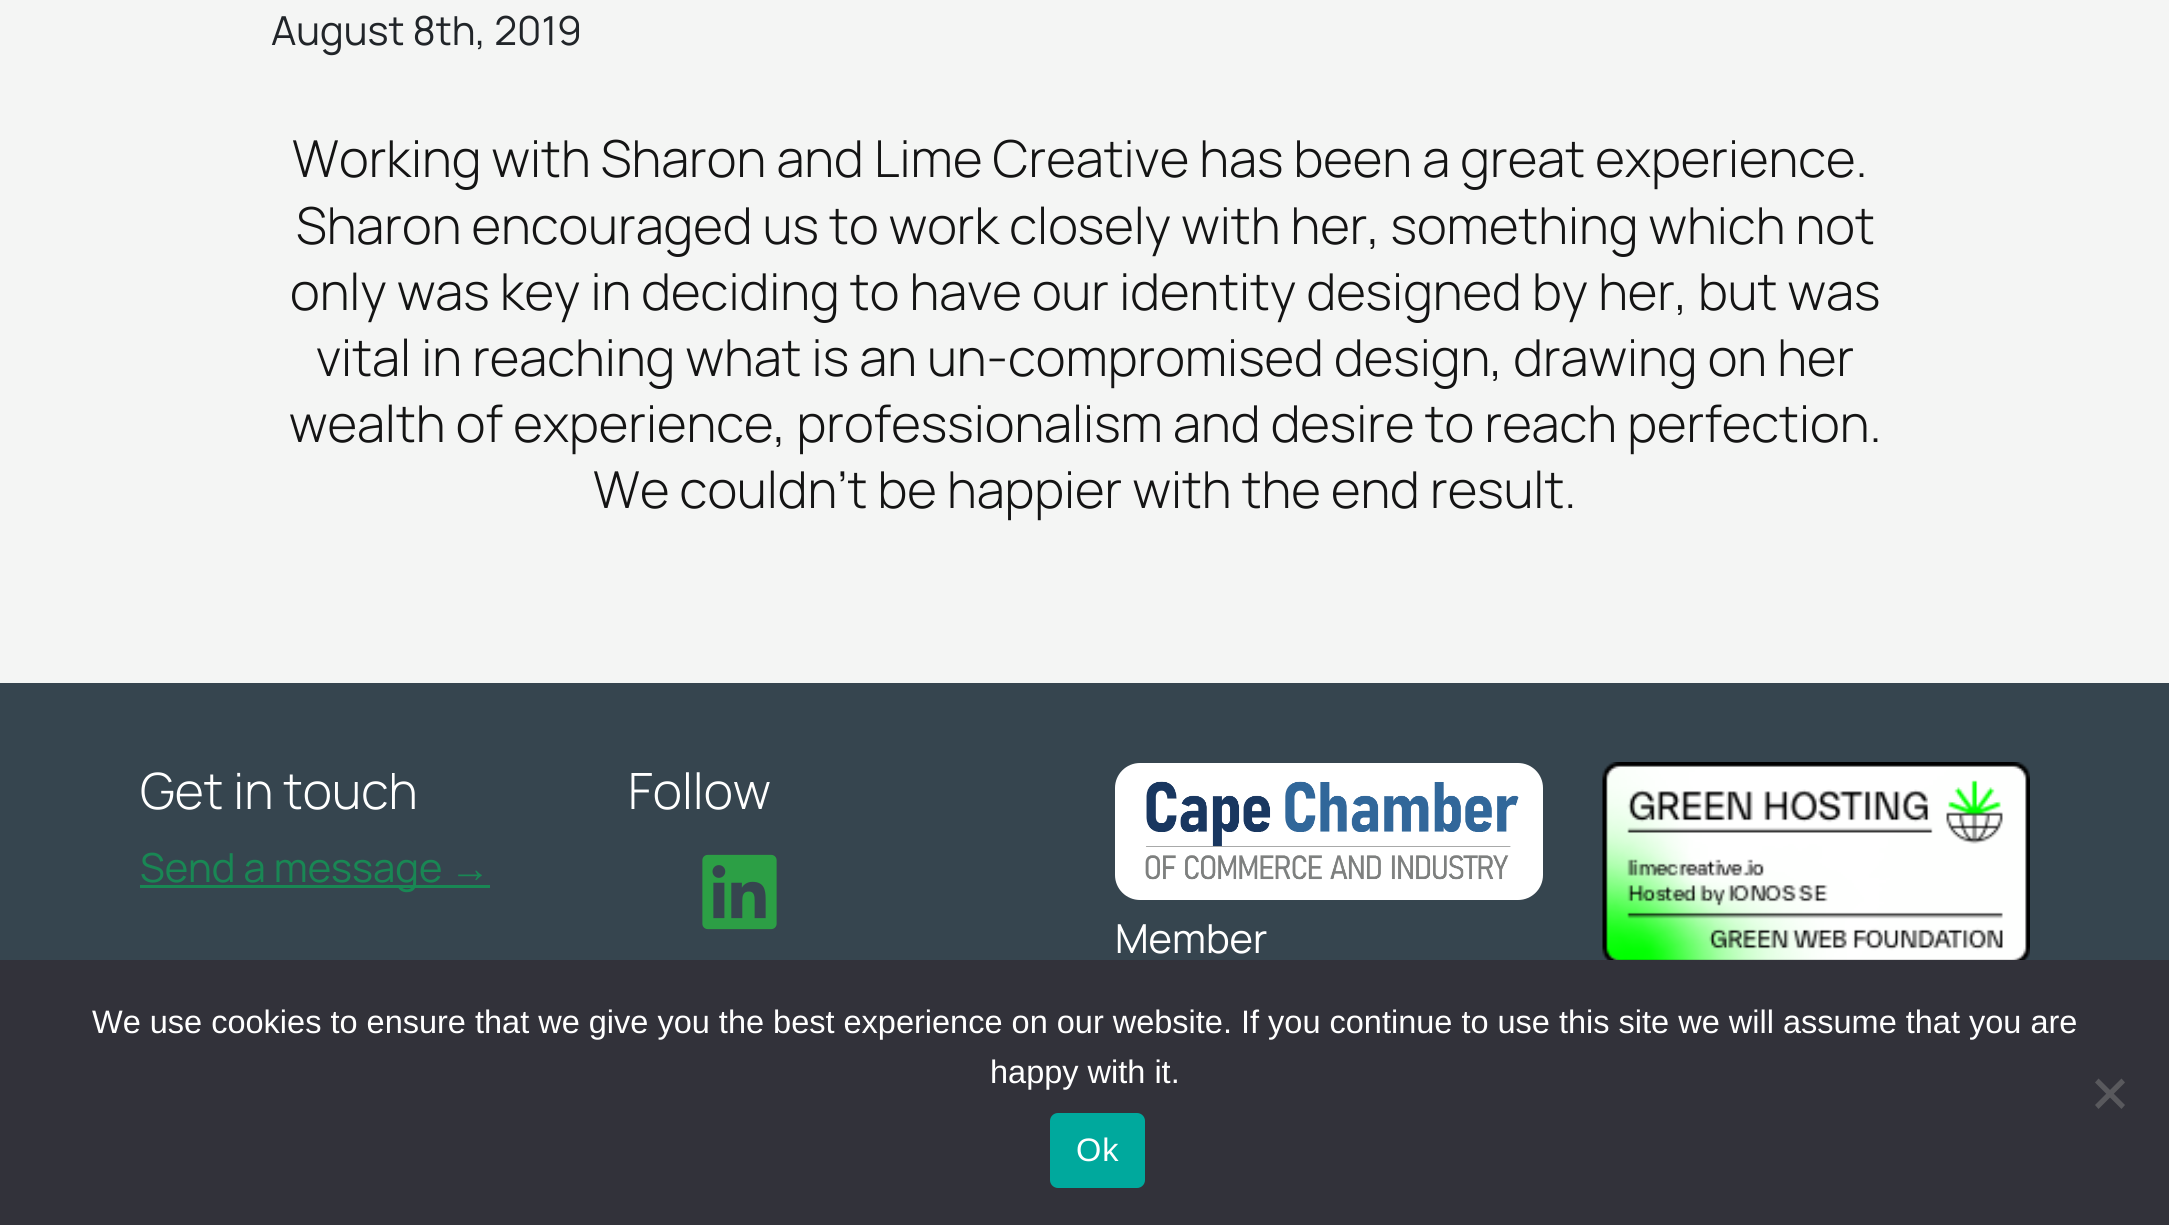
import math
import cairo

surface = cairo.ImageSurface(cairo.FORMAT_RGB24, 2169, 1225)
cr = cairo.Context(surface)
options = cairo.FontOptions()
options.set_hint_metrics(cairo.HINT_METRICS_OFF)
options.set_hint_style(cairo.HINT_STYLE_NONE)
cr.set_font_options(options)
cr.set_miter_limit(4)


def rgb(code):
    cr.set_source_rgb(*(v / 255 for v in bytes.fromhex(code[-6:])))


def tracked(x, y, s, letter, word):
    cr.move_to(x, y)
    for ch in s:
        cr.show_text(ch)
        cr.rel_move_to(letter + word * (ch == ' '), 0)


def rrect(x, y, w, h, r):
    cr.new_sub_path()
    for i, (u, v) in enumerate([(x + w - r, y + h - r), (x + r, y + h - r), (x + r, y + r), (x + w - r, y + r)]):
        cr.arc(u, v, r, i * math.pi / 2, (i + 1) * math.pi / 2)
    cr.close_path()


def image(path, x, y, w, h):
    cr.save()
    cr.set_source_surface(cairo.ImageSurface.create_from_png(path), x, y)
    cr.rectangle(x, y, w, h)
    cr.fill()
    cr.restore()


rgb("#f4f5f4")
cr.paint()
rgb("#36454f")
cr.rectangle(0, 683, 2169, 277)
cr.fill()
rgb("#198754")
cr.rectangle(140, 885, 350, 3)
cr.fill()
image("img/1.png", 702, 854, 75, 76)
image("img/2.png", 1602, 762, 428, 198)
rgb("#ffffff")
rrect(1115, 763, 428, 137, 25)
cr.fill()
image("img/3.png", 1145, 781, 374, 99)
rgb("#32323a")
cr.rectangle(0, 960, 2169, 265)
cr.fill()
rgb("#59595d")
cr.new_path()
cr.move_to(2121.5, 1078.5)
cr.line_to(2125, 1082.5)
cr.line_to(2098.5, 1109)
cr.line_to(2095, 1105)
cr.close_path()
cr.fill()
cr.new_path()
cr.move_to(2095, 1082.5)
cr.line_to(2098.5, 1078.5)
cr.line_to(2125, 1105)
cr.line_to(2121.5, 1109)
cr.close_path()
cr.fill()
rgb("#00a99d")
rrect(1050, 1113, 95, 75, 8)
cr.fill()
cr.select_font_face("Manrope")
cr.set_font_size(40)
rgb("#212529")
cr.move_to(271, 45)
cr.show_text("August 8th, 2019")
cr.select_font_face("Manrope Light")
cr.set_font_size(50.9)
rgb("#141414")
for x, y, s in [
    (292, 177, "Working with Sharon and Lime Creative has been a great experience."),
    (296, 244, "Sharon encouraged us to work closely with her, something which not"),
    (290, 310, "only was key in deciding to have our identity designed by her, but was"),
    (316, 376, "vital in reaching what is an un-compromised design, drawing on her"),
    (289, 442, "wealth of experience, professionalism and desire to reach perfection."),
    (593, 508, "We couldn’t be happier with the end result."),
]:
    cr.move_to(x, y)
    cr.show_text(s)
cr.set_font_size(50)
rgb("#ffffff")
cr.move_to(140, 809)
cr.show_text("Get in touch")
cr.select_font_face("Manrope")
cr.set_font_size(40)
rgb("#198754")
cr.move_to(140, 882)
cr.show_text("Send a message")
cr.select_font_face("Liberation Sans")
cr.move_to(450, 882)
cr.show_text("→")
cr.select_font_face("Manrope Light")
cr.set_font_size(50)
rgb("#ffffff")
cr.move_to(628, 809)
cr.show_text("Follow")
cr.select_font_face("Manrope")
cr.set_font_size(40)
cr.move_to(1115, 953)
cr.show_text("Member")
cr.select_font_face("Liberation Sans")
cr.set_font_size(32.5)
cr.move_to(92, 1033)
cr.show_text("We use cookies to ensure that we give you the best experience on our website. If you continue to use this site we will assume that you are")
cr.move_to(990, 1083)
cr.show_text("happy with it.")
tracked(1076, 1161, "Ok", 1, 0)
surface.write_to_png("page.png")
